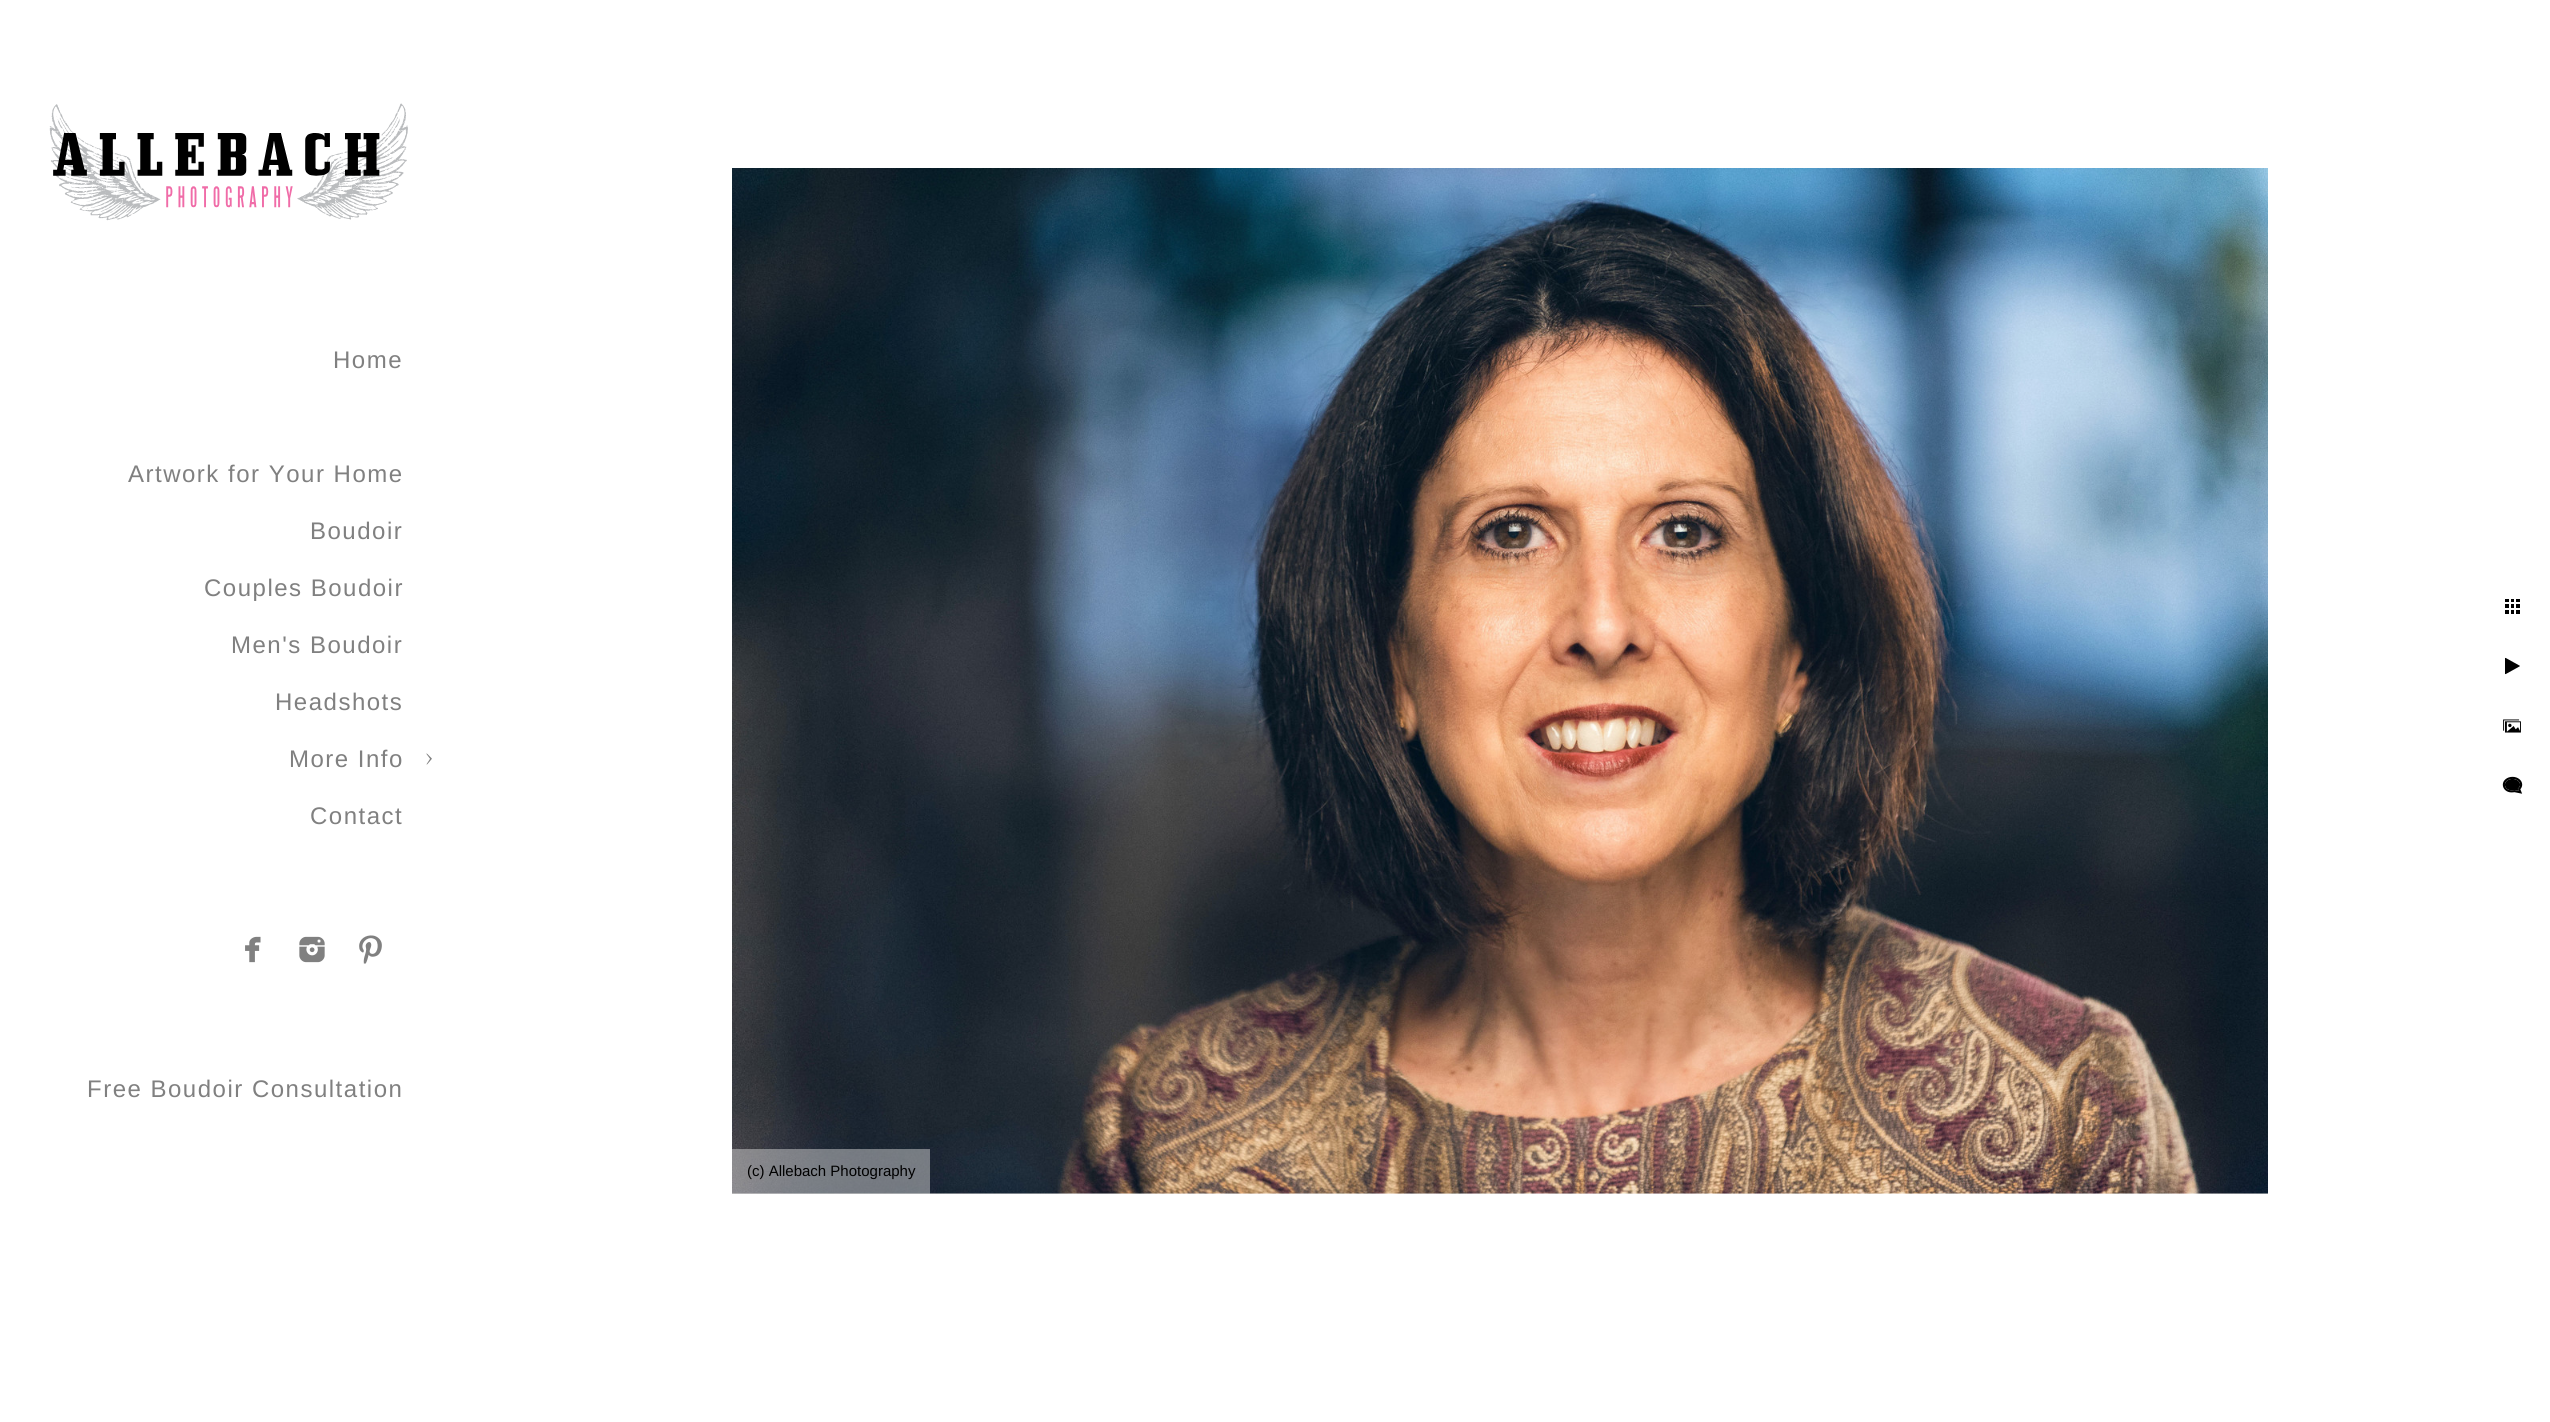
import math
import cairo

surface = cairo.ImageSurface(cairo.FORMAT_RGB24, 2550, 1422)
cr = cairo.Context(surface)
options = cairo.FontOptions()
options.set_hint_metrics(cairo.HINT_METRICS_OFF)
options.set_hint_style(cairo.HINT_STYLE_NONE)
cr.set_font_options(options)
cr.set_miter_limit(4)


def rgb(code):
    cr.set_source_rgb(*(v / 255 for v in bytes.fromhex(code[-6:])))


def tracked(x, y, s, letter, word):
    cr.move_to(x, y)
    for ch in s:
        cr.show_text(ch)
        cr.rel_move_to(letter + word * (ch == ' '), 0)


def image(path, x, y, w, h):
    cr.save()
    cr.set_source_surface(cairo.ImageSurface.create_from_png(path), x, y)
    cr.rectangle(x, y, w, h)
    cr.fill()
    cr.restore()


rgb("#ffffff")
cr.paint()
image("img/1.png", 49, 103, 359, 118)
image("img/2.png", 426, 753, 6, 12)
image("img/3.png", 245, 936, 16, 27)
image("img/4.png", 299, 936, 26, 27)
image("img/5.png", 359, 935, 23, 29)
image("img/6.png", 2505, 599, 15, 15)
image("img/7.png", 2505, 657, 15, 18)
image("img/8.png", 2503, 719, 18, 14)
image("img/9.png", 2502, 776, 21, 18)
image("img/10.png", 732, 168, 1536, 1026)
cr.set_source_rgba(0.827, 0.827, 0.827, 0.5)
cr.rectangle(732, 1149, 198, 45)
cr.fill()
cr.select_font_face("Liberation Sans")
cr.set_font_size(24)
rgb("#808080")
for x, y, s in [
    (333, 368, "Home"),
    (128, 482, "Artwork for Your Home"),
    (310, 539, "Boudoir"),
    (204, 596, "Couples Boudoir"),
    (231, 653, "Men's Boudoir"),
    (275, 710, "Headshots"),
    (289, 767, "More Info"),
    (310, 824, "Contact"),
    (87, 1097, "Free Boudoir Consultation"),
]:
    tracked(x, y, s, 1.5, 0)
cr.set_font_size(15)
rgb("#000000")
cr.move_to(747, 1176)
cr.show_text("(c) Allebach Photography")
surface.write_to_png("page.png")
